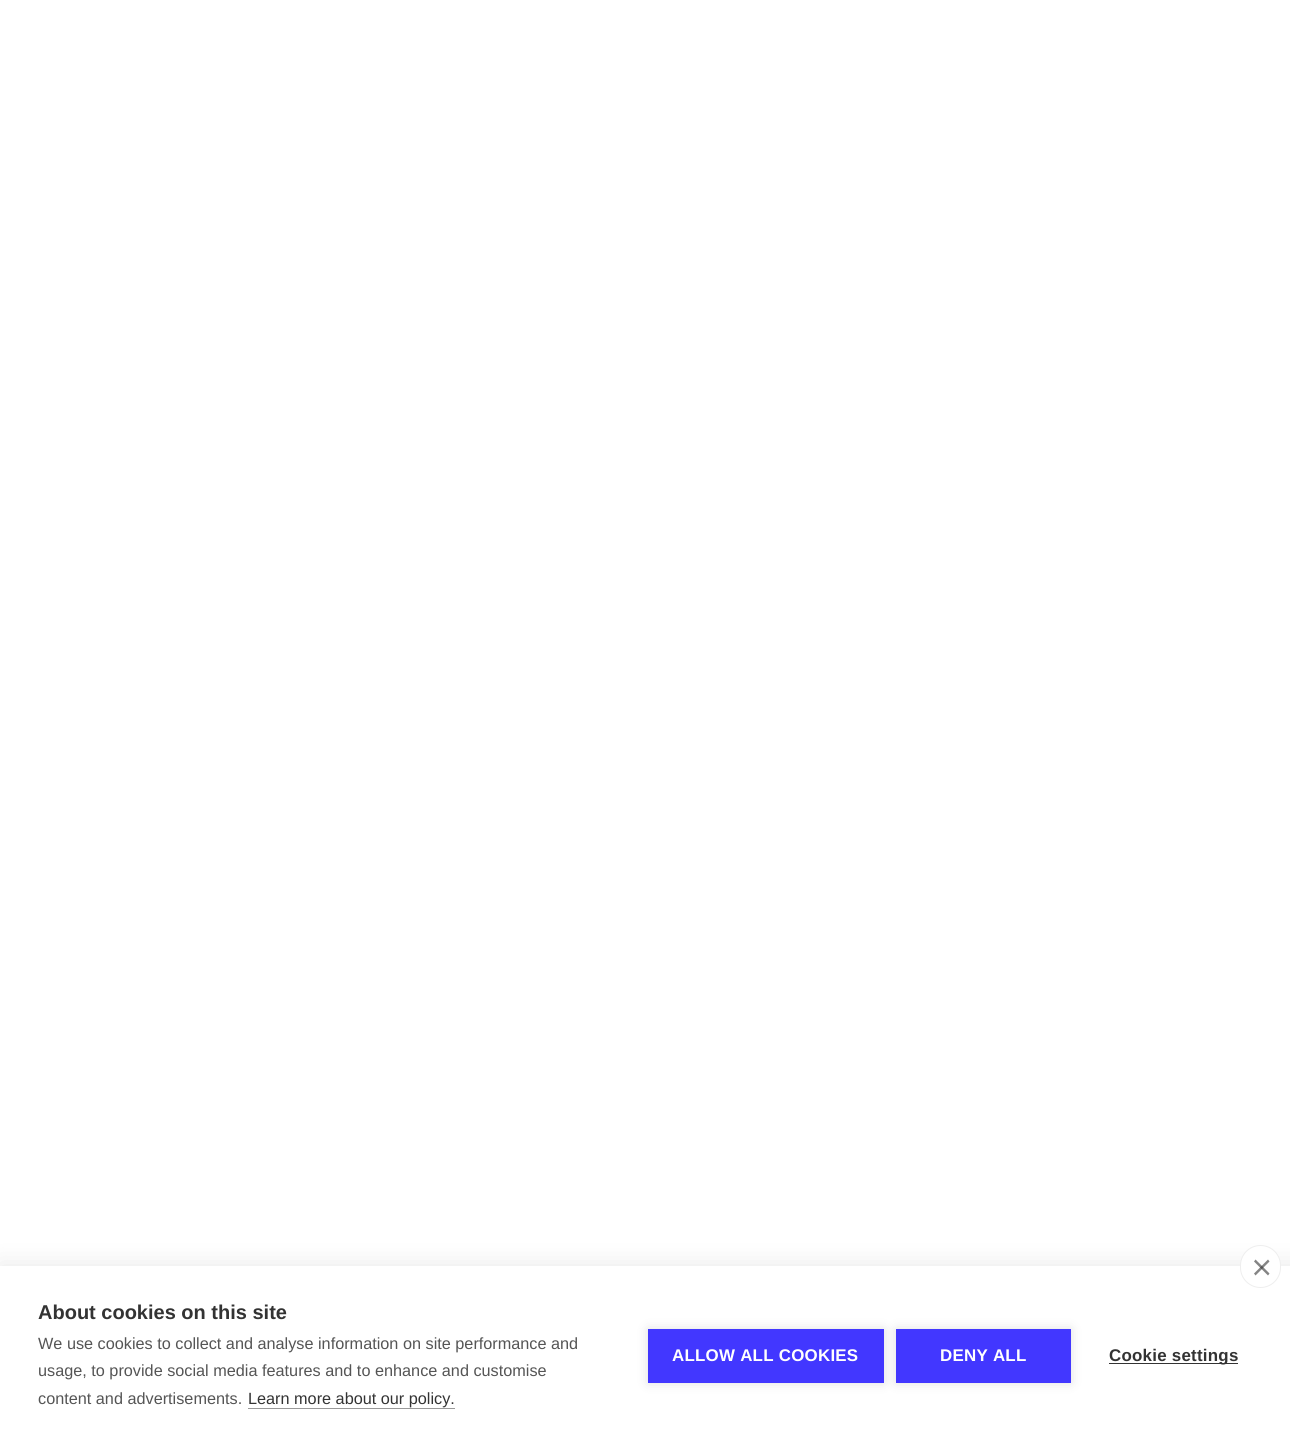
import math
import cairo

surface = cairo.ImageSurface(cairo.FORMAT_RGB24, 1290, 1443)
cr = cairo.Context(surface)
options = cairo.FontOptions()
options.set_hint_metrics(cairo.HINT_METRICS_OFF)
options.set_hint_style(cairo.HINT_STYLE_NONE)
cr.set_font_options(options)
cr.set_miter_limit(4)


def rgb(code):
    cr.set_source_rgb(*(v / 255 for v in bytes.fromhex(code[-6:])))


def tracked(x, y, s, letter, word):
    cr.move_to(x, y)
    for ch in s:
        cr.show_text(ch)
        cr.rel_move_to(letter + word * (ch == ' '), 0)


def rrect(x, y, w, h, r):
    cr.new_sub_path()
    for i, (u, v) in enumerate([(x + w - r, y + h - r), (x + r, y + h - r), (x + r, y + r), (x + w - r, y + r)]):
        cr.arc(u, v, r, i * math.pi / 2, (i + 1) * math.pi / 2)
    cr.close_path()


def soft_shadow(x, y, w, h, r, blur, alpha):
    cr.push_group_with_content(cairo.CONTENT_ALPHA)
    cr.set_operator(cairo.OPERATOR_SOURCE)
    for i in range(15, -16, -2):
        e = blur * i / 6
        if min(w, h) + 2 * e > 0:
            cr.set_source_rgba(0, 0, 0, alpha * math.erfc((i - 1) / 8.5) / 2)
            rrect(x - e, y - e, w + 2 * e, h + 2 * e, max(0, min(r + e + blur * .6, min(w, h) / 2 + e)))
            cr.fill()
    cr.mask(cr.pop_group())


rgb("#ffffff")
cr.paint()
rgb("#000000")
soft_shadow(0, 1266, 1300, 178, 0, 12.5, 0.1)
rgb("#ffffff")
cr.rectangle(0, 1266, 1290, 177)
cr.fill()
rrect(1240.5, 1245.5, 40, 42, 20)
cr.fill_preserve()
rgb("#eeeeee")
cr.set_line_width(1)
cr.stroke()
rgb("#858585")
cr.new_path()
cr.move_to(1254, 1273.5)
cr.line_to(1268, 1259.5)
cr.line_to(1269.5, 1261.5)
cr.line_to(1255.5, 1275.5)
cr.close_path()
cr.fill()
cr.set_source_rgba(0.2, 0.2, 0.2, 0.6)
cr.new_path()
cr.move_to(1255.5, 1259.5)
cr.line_to(1269.5, 1273.5)
cr.line_to(1268, 1275.5)
cr.line_to(1254, 1261.5)
cr.close_path()
cr.fill()
rgb("#999999")
cr.rectangle(248, 1408, 207, 1)
cr.fill()
rgb("#000000")
soft_shadow(648, 1329, 236, 54, 0, 6, 0.12)
rgb("#4237ff")
cr.rectangle(648, 1329, 236, 54)
cr.fill()
rgb("#000000")
soft_shadow(896, 1329, 175, 54, 0, 6, 0.12)
rgb("#4237ff")
cr.rectangle(896, 1329, 175, 54)
cr.fill()
rgb("#333333")
cr.rectangle(1109, 1363, 129, 1)
cr.fill()
cr.select_font_face("Liberation Sans", cairo.FONT_SLANT_NORMAL, cairo.FONT_WEIGHT_BOLD)
cr.set_font_size(20)
cr.move_to(38, 1319)
cr.show_text("About cookies on this site")
cr.select_font_face("Liberation Sans")
cr.set_font_size(16.25)
rgb("#555555")
for x, y, s in [
    (38, 1349, "We use cookies to collect and analyse information on site performance and"),
    (38, 1376, "usage, to provide social media features and to enhance and customise"),
    (38, 1404, "content and advertisements."),
]:
    cr.move_to(x, y)
    cr.show_text(s)
rgb("#333333")
cr.move_to(248, 1404)
cr.show_text("Learn more about our policy.")
cr.select_font_face("Liberation Sans", cairo.FONT_SLANT_NORMAL, cairo.FONT_WEIGHT_BOLD)
cr.set_font_size(16.9)
rgb("#ffffff")
tracked(672, 1361, "ALLOW ALL COOKIES", 0.25, 0)
tracked(940, 1361, "DENY ALL", 0.25, 0)
rgb("#333333")
tracked(1109, 1361, "Cookie settings", 0.25, 0)
surface.write_to_png("page.png")
